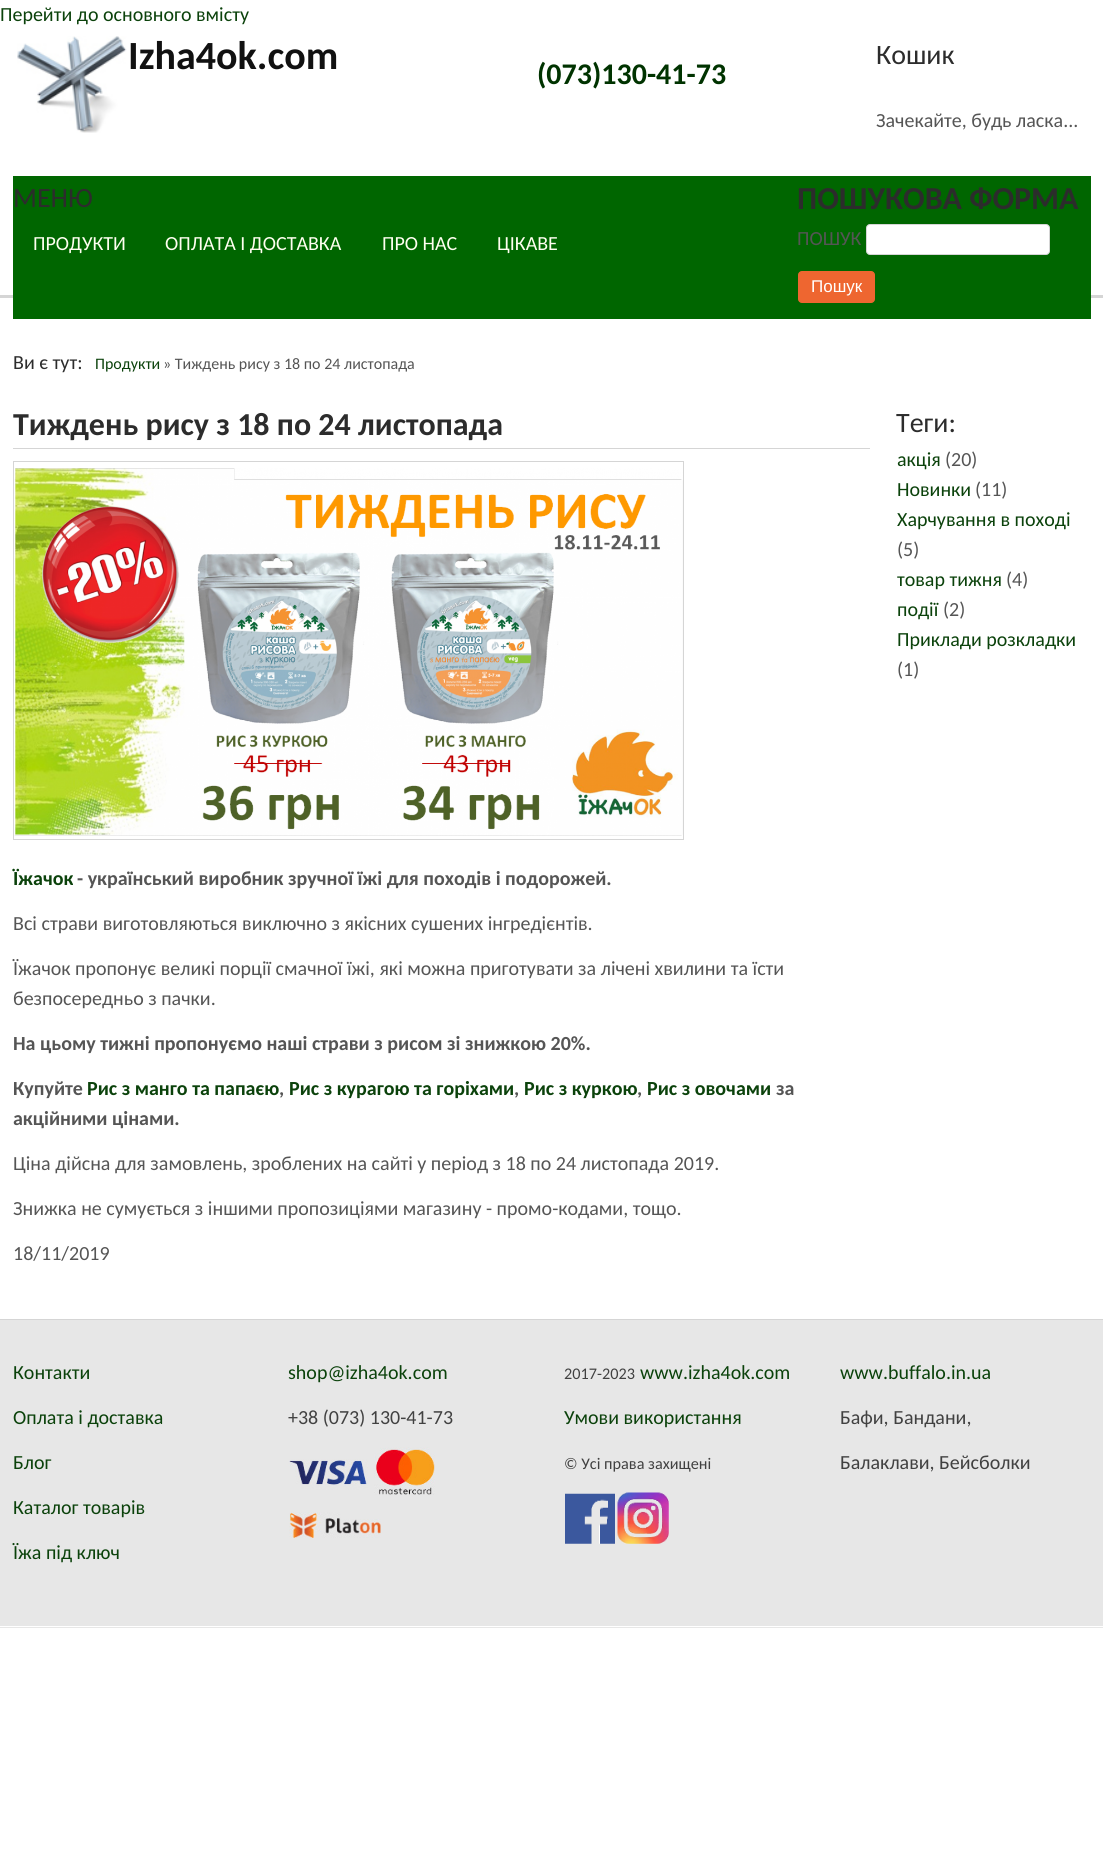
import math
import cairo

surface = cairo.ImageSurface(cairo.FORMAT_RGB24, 1103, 1870)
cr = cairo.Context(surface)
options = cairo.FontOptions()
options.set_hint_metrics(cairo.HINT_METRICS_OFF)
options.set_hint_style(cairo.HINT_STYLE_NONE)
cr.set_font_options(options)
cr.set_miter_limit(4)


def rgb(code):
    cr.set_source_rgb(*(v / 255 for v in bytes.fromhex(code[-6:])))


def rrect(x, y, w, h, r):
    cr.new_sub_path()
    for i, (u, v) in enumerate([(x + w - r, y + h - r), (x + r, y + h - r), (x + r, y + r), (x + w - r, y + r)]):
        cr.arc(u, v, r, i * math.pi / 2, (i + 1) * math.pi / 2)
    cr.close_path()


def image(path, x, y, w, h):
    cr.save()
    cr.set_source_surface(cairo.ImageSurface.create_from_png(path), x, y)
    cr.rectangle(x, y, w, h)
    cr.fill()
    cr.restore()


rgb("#ffffff")
cr.paint()
image("img/1.png", 17, 36, 110, 97)
rgb("#d5d5d5")
cr.rectangle(0, 295, 1103, 3)
cr.fill()
rgb("#006600")
cr.rectangle(13, 176, 1078, 143)
cr.fill()
rgb("#ffffff")
rrect(866.5, 224.5, 183, 30, 3.5)
cr.fill_preserve()
rgb("#d5d5d5")
cr.set_line_width(1)
cr.stroke()
rgb("#ee6630")
rrect(798.5, 271.5, 76, 31, 3.5)
cr.fill_preserve()
cr.stroke()
rgb("#d5d5d5")
cr.rectangle(0, 1319, 1103, 1)
cr.fill()
cr.rectangle(13, 448, 857, 1)
cr.fill()
cr.rectangle(13.5, 461.5, 670, 378)
cr.stroke()
image("img/2.png", 14, 468, 669, 368)
rgb("#e7e7e7")
cr.rectangle(0, 1320, 1103, 308)
cr.fill()
rgb("#ffffff")
cr.rectangle(0, 1626, 1103, 1)
cr.fill()
image("img/3.png", 289, 1447, 146, 48)
image("img/4.png", 289, 1512, 92, 26)
image("img/5.png", 565, 1493, 50, 51)
image("img/6.png", 617, 1492, 52, 52)
cr.select_font_face("Carlito")
cr.set_font_size(20)
rgb("#0b420b")
cr.move_to(0, 21)
cr.show_text("Перейти до основного вмісту")
cr.select_font_face("Carlito", cairo.FONT_SLANT_NORMAL, cairo.FONT_WEIGHT_BOLD)
cr.set_font_size(40)
rgb("#111111")
cr.move_to(128, 69)
cr.show_text("Izha4ok.com")
cr.set_font_size(30)
rgb("#003300")
cr.move_to(537, 84)
cr.show_text("(073)130-41-73")
cr.select_font_face("Carlito")
cr.set_font_size(28)
rgb("#2c2c2c")
cr.move_to(876, 64)
cr.show_text("Кошик")
cr.set_font_size(20)
rgb("#555555")
cr.move_to(876, 127)
cr.show_text("Зачекайте, будь ласка...")
cr.set_font_size(28)
rgb("#2c2c2c")
cr.move_to(13, 207)
cr.show_text("МЕНЮ")
cr.set_font_size(20)
rgb("#fffff0")
for x, y, s in [
    (33, 250, "ПРОДУКТИ"),
    (165, 250, "ОПЛАТА І ДОСТАВКА"),
    (382, 250, "ПРО НАС"),
    (497, 250, "ЦІКАВЕ"),
]:
    cr.move_to(x, y)
    cr.show_text(s)
cr.select_font_face("Carlito", cairo.FONT_SLANT_NORMAL, cairo.FONT_WEIGHT_BOLD)
cr.set_font_size(32)
rgb("#2c2c2c")
cr.move_to(797, 209)
cr.show_text("ПОШУКОВА ФОРМА")
cr.select_font_face("Carlito")
cr.set_font_size(20)
rgb("#555555")
cr.move_to(797, 245)
cr.show_text("ПОШУК")
cr.select_font_face("Liberation Sans")
cr.set_font_size(17)
rgb("#ffffff")
cr.move_to(811, 292)
cr.show_text("Пошук")
cr.select_font_face("Carlito")
cr.set_font_size(20)
rgb("#2c2c2c")
cr.move_to(13, 369)
cr.show_text("Ви є тут:")
cr.set_font_size(16)
rgb("#0b420b")
cr.move_to(95, 369)
cr.show_text("Продукти")
rgb("#555555")
cr.move_to(163, 369)
cr.show_text("» Тиждень рису з 18 по 24 листопада")
cr.select_font_face("Carlito", cairo.FONT_SLANT_NORMAL, cairo.FONT_WEIGHT_BOLD)
cr.set_font_size(32)
rgb("#2c2c2c")
cr.move_to(13, 435)
cr.show_text("Тиждень рису з 18 по 24 листопада")
cr.set_font_size(20)
rgb("#0b420b")
cr.move_to(13, 885)
cr.show_text("Їжачок")
rgb("#555555")
cr.move_to(77, 885)
cr.show_text("- український виробник зручної їжі для походів і подорожей.")
cr.select_font_face("Carlito")
for x, y, s in [
    (13, 930, "Всі страви виготовляються виключно з якісних сушених інгредієнтів."),
    (13, 975, "Їжачок пропонує великі порції смачної їжі, які можна приготувати за лічені хвилини та їсти"),
    (13, 1005, "безпосередньо з пачки."),
]:
    cr.move_to(x, y)
    cr.show_text(s)
cr.select_font_face("Carlito", cairo.FONT_SLANT_NORMAL, cairo.FONT_WEIGHT_BOLD)
cr.move_to(13, 1050)
cr.show_text("На цьому тижні пропонуємо наші страви з рисом зі знижкою 20%.")
cr.move_to(13, 1095)
cr.show_text("Купуйте")
rgb("#0b420b")
cr.move_to(87, 1095)
cr.show_text("Рис з манго та папаєю")
rgb("#555555")
cr.move_to(279, 1095)
cr.show_text(",")
rgb("#0b420b")
cr.move_to(289, 1095)
cr.show_text("Рис з курагою та горіхами")
rgb("#555555")
cr.move_to(514, 1095)
cr.show_text(",")
rgb("#0b420b")
cr.move_to(524, 1095)
cr.show_text("Рис з куркою")
rgb("#555555")
cr.move_to(637, 1095)
cr.show_text(",")
rgb("#0b420b")
cr.move_to(647, 1095)
cr.show_text("Рис з овочами")
rgb("#555555")
cr.move_to(776, 1095)
cr.show_text("за")
cr.move_to(13, 1125)
cr.show_text("акційними цінами.")
cr.select_font_face("Carlito")
for x, y, s in [
    (13, 1170, "Ціна дійсна для замовлень, зроблених на сайті у період з 18 по 24 листопада 2019."),
    (13, 1215, "Знижка не сумується з іншими пропозиціями магазину - промо-кодами, тощо."),
    (13, 1260, "18/11/2019"),
]:
    cr.move_to(x, y)
    cr.show_text(s)
cr.set_font_size(28)
rgb("#2c2c2c")
cr.move_to(896, 432)
cr.show_text("Теги:")
cr.set_font_size(20)
rgb("#0b420b")
cr.move_to(897, 466)
cr.show_text("акція")
rgb("#555555")
cr.move_to(945, 466)
cr.show_text("(20)")
rgb("#0b420b")
cr.move_to(897, 496)
cr.show_text("Новинки")
rgb("#555555")
cr.move_to(975, 496)
cr.show_text("(11)")
rgb("#0b420b")
cr.move_to(897, 526)
cr.show_text("Харчування в поході")
rgb("#555555")
cr.move_to(897, 556)
cr.show_text("(5)")
rgb("#0b420b")
cr.move_to(897, 586)
cr.show_text("товар тижня")
rgb("#555555")
cr.move_to(1006, 586)
cr.show_text("(4)")
rgb("#0b420b")
cr.move_to(897, 616)
cr.show_text("події")
rgb("#555555")
cr.move_to(943, 616)
cr.show_text("(2)")
rgb("#0b420b")
cr.move_to(897, 646)
cr.show_text("Приклади розкладки")
rgb("#555555")
cr.move_to(897, 676)
cr.show_text("(1)")
rgb("#0b420b")
for x, y, s in [
    (13, 1379, "Контакти"),
    (13, 1424, "Оплата і доставка"),
    (13, 1469, "Блог"),
    (13, 1514, "Каталог товарів"),
    (13, 1559, "Їжа під ключ"),
    (288, 1379, "shop@izha4ok.com"),
]:
    cr.move_to(x, y)
    cr.show_text(s)
rgb("#414141")
cr.move_to(288, 1424)
cr.show_text("+38 (073) 130-41-73")
cr.set_font_size(16.25)
cr.move_to(564, 1379)
cr.show_text("2017-2023")
cr.set_font_size(20)
rgb("#0b420b")
cr.move_to(640, 1379)
cr.show_text("www.izha4ok.com")
cr.move_to(564, 1424)
cr.show_text("Умови використання")
cr.set_font_size(16.25)
rgb("#414141")
cr.move_to(564, 1469)
cr.show_text("© Усі права захищені")
cr.set_font_size(20)
rgb("#0b420b")
cr.move_to(840, 1379)
cr.show_text("www.buffalo.in.ua")
rgb("#414141")
cr.move_to(840, 1424)
cr.show_text("Бафи, Бандани,")
cr.move_to(840, 1469)
cr.show_text("Балаклави, Бейсболки")
surface.write_to_png("page.png")
